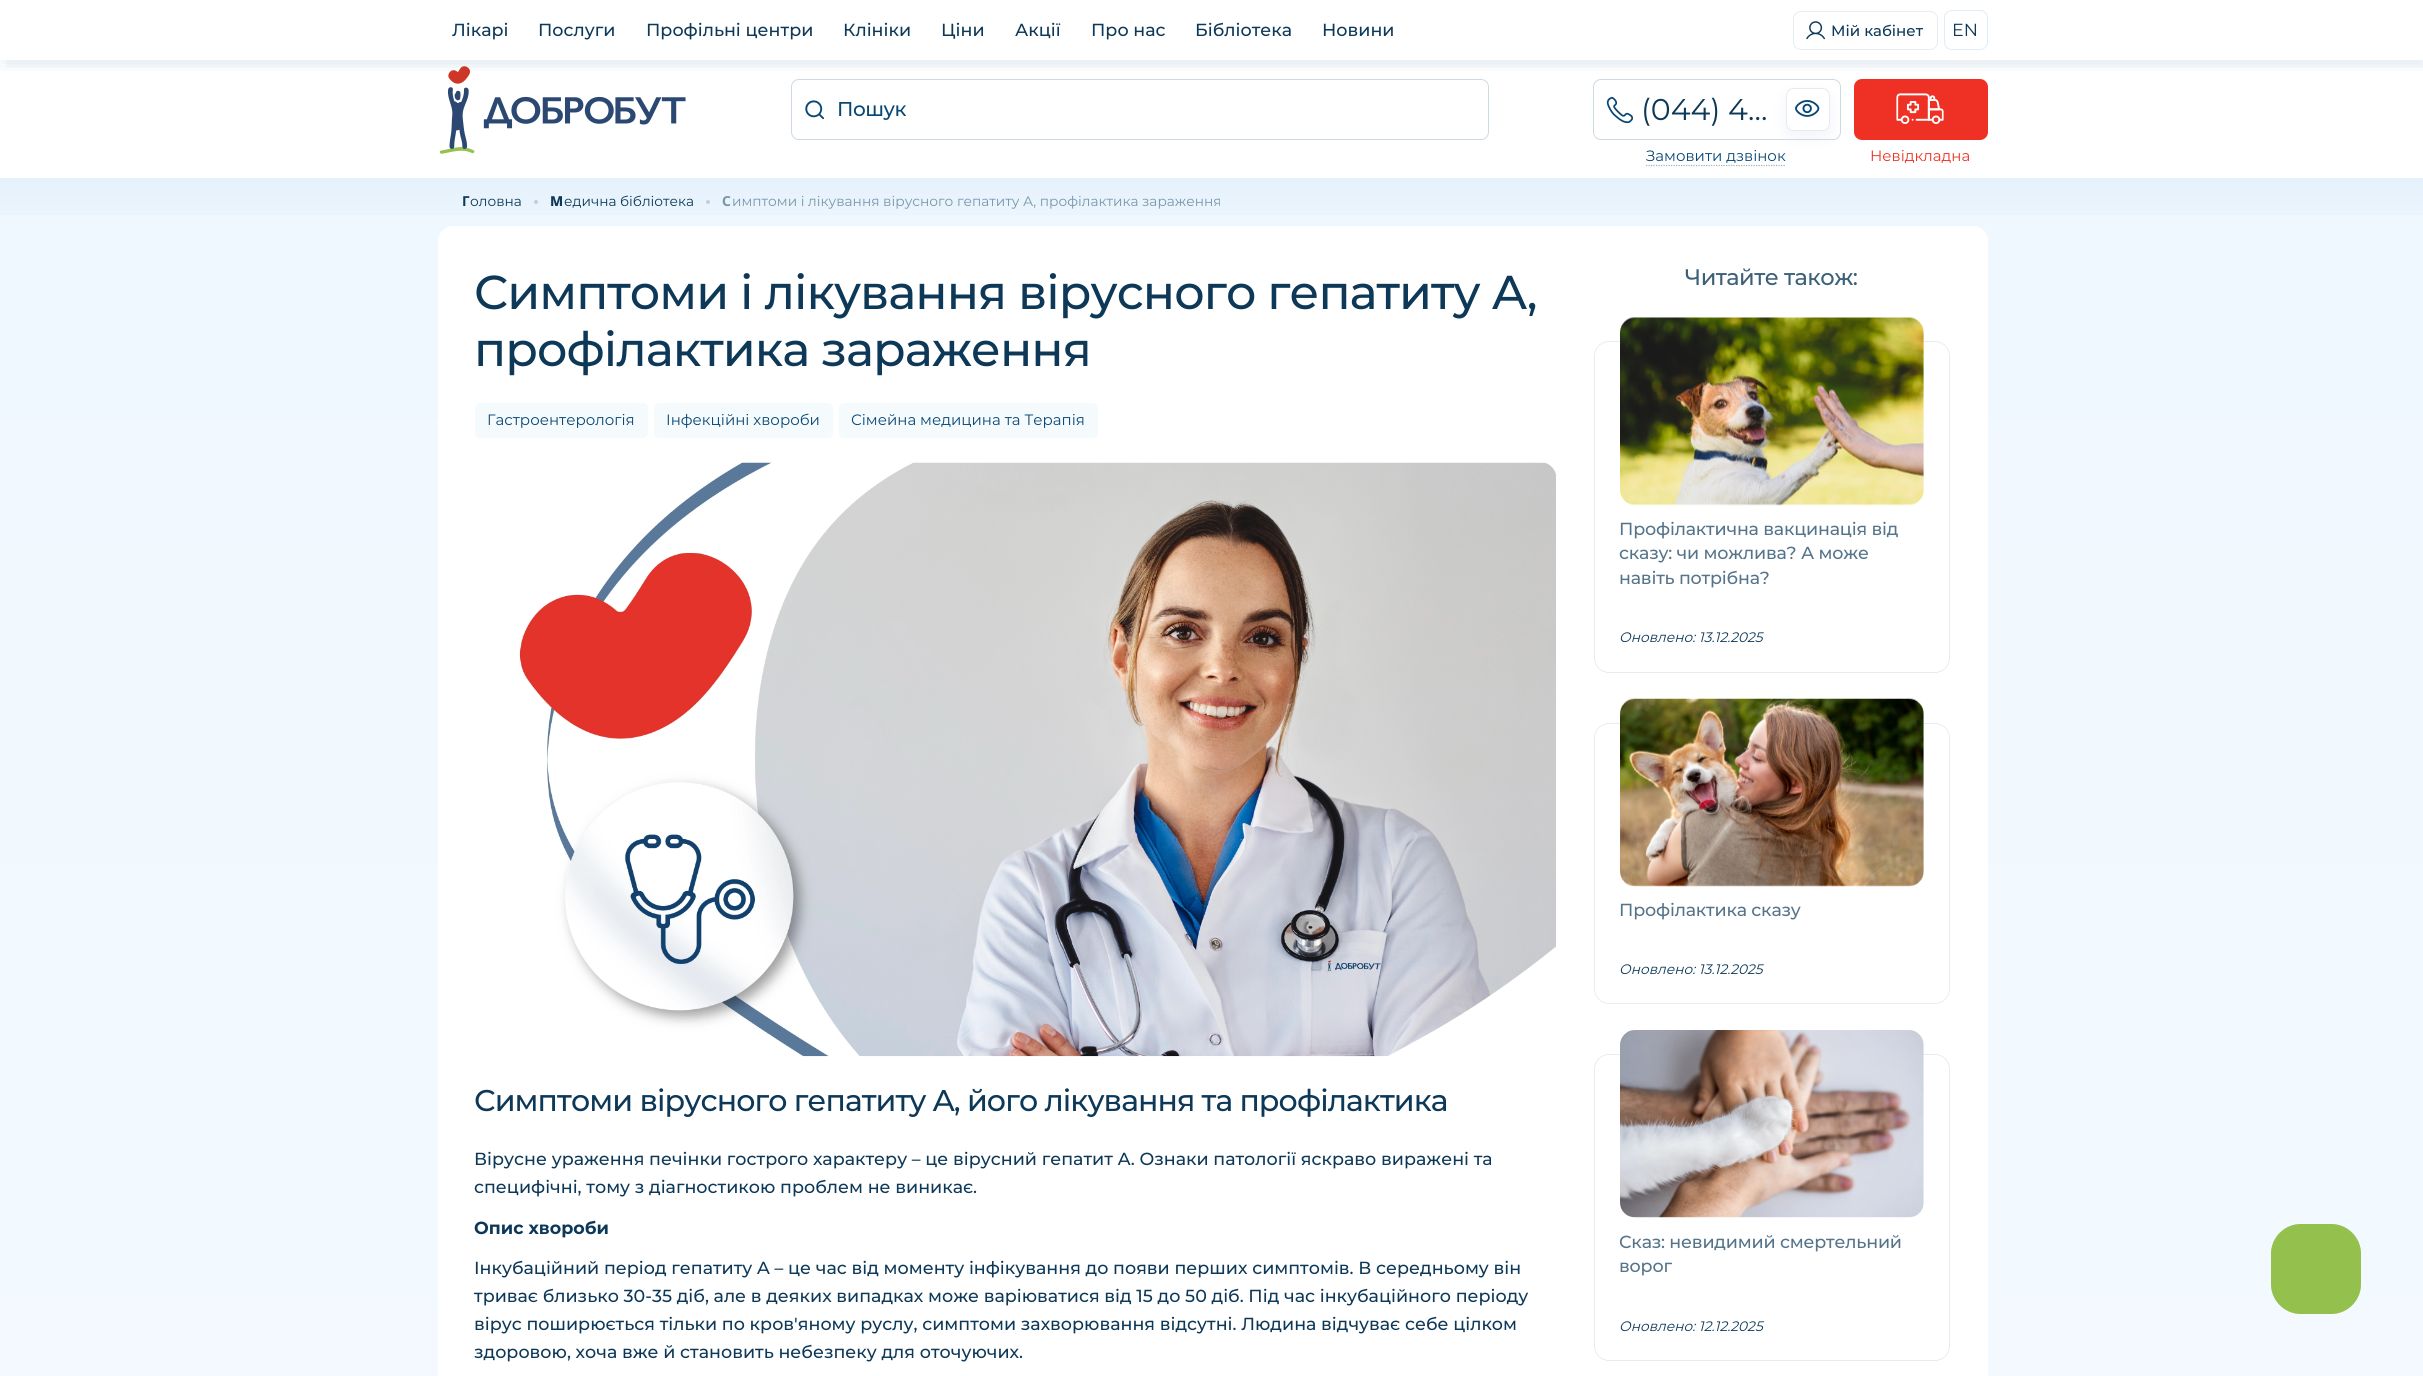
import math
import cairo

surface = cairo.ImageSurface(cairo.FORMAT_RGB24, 2423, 1376)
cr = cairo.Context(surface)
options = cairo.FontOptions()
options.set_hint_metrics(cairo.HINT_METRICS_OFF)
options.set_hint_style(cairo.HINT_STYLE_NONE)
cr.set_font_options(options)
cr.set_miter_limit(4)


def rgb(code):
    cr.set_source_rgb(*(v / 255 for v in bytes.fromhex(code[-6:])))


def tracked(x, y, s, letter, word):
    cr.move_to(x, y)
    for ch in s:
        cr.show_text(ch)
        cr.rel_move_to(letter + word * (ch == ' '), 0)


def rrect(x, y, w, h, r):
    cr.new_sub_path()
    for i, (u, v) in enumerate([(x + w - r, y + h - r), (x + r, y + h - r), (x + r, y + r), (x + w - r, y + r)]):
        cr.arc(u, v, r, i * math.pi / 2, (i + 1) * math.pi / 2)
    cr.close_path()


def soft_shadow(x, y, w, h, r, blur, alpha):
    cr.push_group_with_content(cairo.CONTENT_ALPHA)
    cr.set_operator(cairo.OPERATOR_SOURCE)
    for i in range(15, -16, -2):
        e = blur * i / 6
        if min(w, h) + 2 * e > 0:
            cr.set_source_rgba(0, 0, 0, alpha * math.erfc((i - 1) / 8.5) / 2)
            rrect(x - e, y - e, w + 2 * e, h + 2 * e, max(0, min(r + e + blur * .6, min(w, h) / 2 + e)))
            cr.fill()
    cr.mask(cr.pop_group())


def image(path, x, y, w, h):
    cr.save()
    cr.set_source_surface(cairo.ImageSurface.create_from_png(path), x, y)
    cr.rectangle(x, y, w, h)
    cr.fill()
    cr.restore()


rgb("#ffffff")
cr.paint()
image("img/2.png", 439, 66, 247, 88)
rrect(791.5, 79.5, 697, 60, 7.5)
rgb("#cedae3")
cr.set_line_width(1)
cr.stroke()
rrect(1593.5, 79.5, 247, 60, 7.5)
cr.stroke()
rgb("#ee3124")
rrect(1854, 79, 134, 61, 8)
cr.fill()
cr.save()
cr.rectangle(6, 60, 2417, 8)
cr.clip()
rgb("#094774")
soft_shadow(6, 6, 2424, 60, 0, 6, 0.05)
cr.restore()
rgb("#a5b5d7")
soft_shadow(1786, 94, 44, 44, 8, 7.5, 0.15)
rgb("#ffffff")
rrect(1786, 88, 44, 43, 8)
cr.fill()
image("img/5.png", 1795, 100, 25, 17)
rrect(1786.5, 88.5, 43, 42, 7.5)
rgb("#e7ebee")
cr.stroke()
image("img/6.png", 1896, 93, 48, 31)
cr.save()
cr.rectangle(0, 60, 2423, 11)
cr.clip()
rgb("#094774")
soft_shadow(0, 6, 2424, 60, 0, 9.5, 0.07)
cr.restore()
rrect(1793.5, 11.5, 144, 38, 7.5)
rgb("#e6edf1")
cr.stroke()
image("img/1.png", 1806, 21, 19, 19)
rrect(1944.5, 10.5, 43, 39, 7.5)
rgb("#deedf8")
cr.stroke()
image("img/3.png", 805, 100, 19, 20)
image("img/4.png", 1606, 96, 27, 28)
cr.new_path()
cr.move_to(1646, 165.5)
cr.line_to(1786, 165.5)
rgb("#9eafbc")
cr.set_line_width(1.2)
cr.set_dash([1.25, 1.25])
cr.stroke()
gradient = cairo.LinearGradient(1212, 178, 1212, 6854)
gradient.add_color_stop_rgba(0, 0.941, 0.973, 1, 1)
gradient.add_color_stop_rgba(1, 1, 1, 1, 1)
cr.set_source(gradient)
cr.rectangle(0, 178, 2423, 1198)
cr.fill()
gradient = cairo.LinearGradient(1212, 177, 1212, 244)
gradient.add_color_stop_rgba(0, 0, 0.435, 0.706, 0.05)
gradient.add_color_stop_rgba(1, 0, 0.435, 0.706, 0)
cr.set_source(gradient)
cr.rectangle(0, 178, 2423, 37)
cr.fill()
rgb("#bad0e1")
cr.arc(536, 202, 2, 0, 2 * math.pi)
cr.fill()
cr.arc(708, 202, 2, 0, 2 * math.pi)
cr.fill()
rgb("#ffffff")
rrect(438, 226, 1550, 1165, 15)
cr.fill()
rgb("#f5fafd")
rrect(475, 403, 173, 35, 5)
cr.fill()
rrect(654, 403, 179, 35, 5)
cr.fill()
rrect(839, 403, 259, 35, 5)
cr.fill()
image("img/7.png", 519, 462, 1037, 595)
rrect(1594.5, 341.5, 355, 331, 14.5)
rgb("#e6edf1")
cr.set_line_width(1)
cr.set_dash([])
cr.stroke()
image("img/8.png", 1620, 317, 304, 189)
rrect(1594.5, 723.5, 355, 280, 14.5)
cr.stroke()
image("img/9.png", 1620, 698, 304, 189)
rrect(1594.5, 1054.5, 355, 306, 14.5)
cr.stroke()
image("img/10.png", 1620, 1030, 304, 188)
rgb("#95c14f")
rrect(2271, 1224, 90, 90, 30)
cr.fill()
cr.set_source_rgba(0.584, 0.757, 0.31, 0.2)
rrect(2271, 1224, 90, 90, 30)
cr.fill()
cr.set_source_rgba(0.584, 0.757, 0.31, 0.3)
rrect(2271, 1224, 90, 90, 30)
cr.fill()
cr.select_font_face("Montserrat Medium")
cr.set_font_size(17.5)
rgb("#0d3857")
for x, y, s in [
    (452, 36, "Лікарі"),
    (538, 36, "Послуги"),
    (646, 36, "Профільні центри"),
    (843, 36, "Клініки"),
    (941, 36, "Ціни"),
    (1015, 36, "Акції"),
    (1091, 36, "Про нас"),
    (1195, 36, "Бібліотека"),
    (1322, 36, "Новини"),
]:
    cr.move_to(x, y)
    cr.show_text(s)
cr.set_font_size(15)
cr.move_to(1831, 36)
cr.show_text("Мій кабінет")
cr.select_font_face("Montserrat")
cr.set_font_size(17.5)
cr.move_to(1952, 36)
cr.show_text("EN")
cr.select_font_face("Montserrat Medium")
cr.set_font_size(20)
rgb("#094774")
tracked(837, 116, "Пошук", -0.5, 0)
cr.select_font_face("Montserrat")
cr.set_font_size(30)
rgb("#0d3857")
cr.move_to(1641, 120)
cr.show_text("(044) 4…")
cr.set_font_size(15)
rgb("#094774")
cr.move_to(1646, 161)
cr.show_text("Замовити дзвінок")
rgb("#ee3124")
cr.move_to(1870, 161)
cr.show_text("Невідкладна")
cr.select_font_face("Noto Sans", cairo.FONT_SLANT_NORMAL, cairo.FONT_WEIGHT_BOLD)
cr.set_font_size(13.75)
rgb("#0d3857")
cr.move_to(462, 206)
cr.show_text("Г")
cr.select_font_face("Montserrat")
cr.move_to(470, 206)
cr.show_text("оловна")
cr.select_font_face("Noto Sans ExtraBold")
cr.move_to(550, 206)
cr.show_text("М")
cr.select_font_face("Montserrat")
cr.move_to(564, 206)
cr.show_text("едична бібліотека")
cr.select_font_face("Noto Sans", cairo.FONT_SLANT_NORMAL, cairo.FONT_WEIGHT_BOLD)
rgb("#7a95a9")
cr.move_to(722, 206)
cr.show_text("С")
cr.select_font_face("Montserrat")
cr.move_to(732, 206)
cr.show_text("имптоми і лікування вірусного гепатиту А, профілактика зараження")
cr.select_font_face("Montserrat Medium")
cr.set_font_size(47.5)
rgb("#0d3857")
tracked(474, 309, "Симптоми і лікування вірусного гепатиту А,", -0.95, 0)
tracked(474, 366, "профілактика зараження", -0.95, 0)
cr.select_font_face("Montserrat")
cr.set_font_size(15)
rgb("#094774")
for x, y, s in [
    (487, 425, "Гастроентерологія"),
    (666, 425, "Інфекційні хвороби"),
    (851, 425, "Сімейна медицина та Терапія"),
]:
    cr.move_to(x, y)
    cr.show_text(s)
cr.select_font_face("Montserrat Medium")
cr.set_font_size(30)
rgb("#0d3857")
tracked(474, 1111, "Симптоми вірусного гепатиту A, його лікування та профілактика", -0.9, 0)
cr.set_font_size(17.5)
cr.move_to(474, 1165)
cr.show_text("Вірусне ураження печінки гострого характеру – це вірусний гепатит А. Ознаки патології яскраво виражені та")
cr.move_to(474, 1193)
cr.show_text("специфічні, тому з діагностикою проблем не виникає.")
cr.select_font_face("Montserrat", cairo.FONT_SLANT_NORMAL, cairo.FONT_WEIGHT_BOLD)
cr.move_to(474, 1234)
cr.show_text("Опис хвороби")
cr.select_font_face("Montserrat Medium")
for x, y, s in [
    (474, 1274, "Інкубаційний період гепатиту A – це час від моменту інфікування до появи перших симптомів. В середньому він"),
    (474, 1302, "триває близько 30-35 діб, але в деяких випадках може варіюватися від 15 до 50 діб. Під час інкубаційного періоду"),
    (474, 1330, "вірус поширюється тільки по кров'яному руслу, симптоми захворювання відсутні. Людина відчуває себе цілком"),
    (474, 1358, "здоровою, хоча вже й становить небезпеку для оточуючих."),
]:
    cr.move_to(x, y)
    cr.show_text(s)
cr.set_font_size(22.5)
rgb("#3d6079")
tracked(1685, 285, "Читайте також:", -0.5, 0)
cr.set_font_size(17.5)
rgb("#567489")
for x, y, s in [
    (1619, 535, "Профілактична вакцинація від"),
    (1619, 559, "сказу: чи можлива? А може"),
    (1619, 584, "навіть потрібна?"),
]:
    tracked(x, y, s, -0.2, 0)
cr.select_font_face("Montserrat", cairo.FONT_SLANT_ITALIC)
cr.set_font_size(13.75)
rgb("#0d3857")
cr.move_to(1619, 642)
cr.show_text("Оновлено: 13.12.2025")
cr.select_font_face("Montserrat Medium")
cr.set_font_size(17.5)
rgb("#567489")
tracked(1619, 916, "Профілактика сказу", -0.2, 0)
cr.select_font_face("Montserrat", cairo.FONT_SLANT_ITALIC)
cr.set_font_size(13.75)
rgb("#0d3857")
cr.move_to(1619, 974)
cr.show_text("Оновлено: 13.12.2025")
cr.select_font_face("Montserrat Medium")
cr.set_font_size(17.5)
rgb("#567489")
tracked(1619, 1248, "Сказ: невидимий смертельний", -0.2, 0)
tracked(1619, 1272, "ворог", -0.2, 0)
cr.select_font_face("Montserrat", cairo.FONT_SLANT_ITALIC)
cr.set_font_size(13.75)
rgb("#0d3857")
cr.move_to(1619, 1331)
cr.show_text("Оновлено: 12.12.2025")
surface.write_to_png("page.png")
